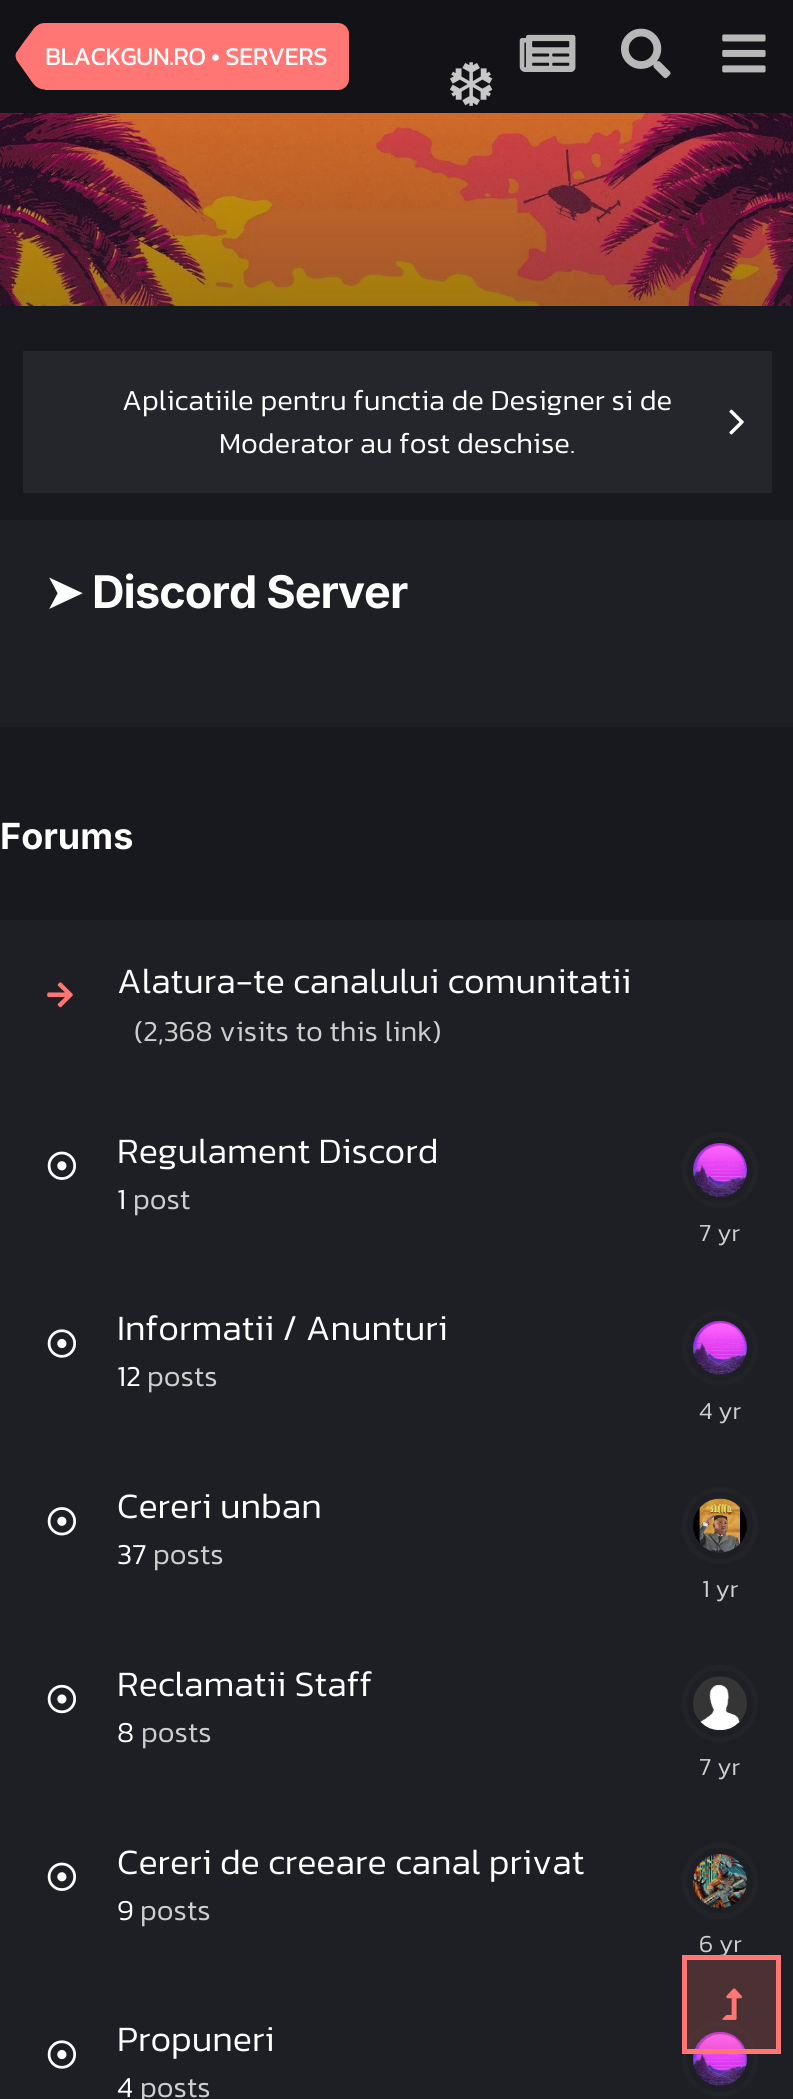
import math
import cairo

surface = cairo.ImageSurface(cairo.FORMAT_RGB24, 793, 2099)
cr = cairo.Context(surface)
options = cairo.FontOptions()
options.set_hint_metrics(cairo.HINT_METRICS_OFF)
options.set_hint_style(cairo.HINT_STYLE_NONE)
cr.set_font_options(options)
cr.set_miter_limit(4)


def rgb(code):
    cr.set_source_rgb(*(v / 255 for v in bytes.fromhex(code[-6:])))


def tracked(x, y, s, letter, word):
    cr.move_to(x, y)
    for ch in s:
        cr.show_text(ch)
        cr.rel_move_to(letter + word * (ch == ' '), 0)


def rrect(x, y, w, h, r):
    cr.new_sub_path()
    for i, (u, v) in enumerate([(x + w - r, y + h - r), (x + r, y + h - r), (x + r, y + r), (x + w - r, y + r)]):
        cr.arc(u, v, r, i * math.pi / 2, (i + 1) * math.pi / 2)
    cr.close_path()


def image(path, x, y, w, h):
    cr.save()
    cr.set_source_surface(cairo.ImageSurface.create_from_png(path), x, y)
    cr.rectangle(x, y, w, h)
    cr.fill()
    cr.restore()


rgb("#1e1f24")
cr.paint()
rgb("#131317")
cr.rectangle(0, 0, 793, 113)
cr.fill()
rgb("#ff7675")
cr.new_path()
cr.move_to(45, 23)
cr.line_to(338, 23)
cr.curve_to(344, 23, 349, 28, 349, 34)
cr.line_to(349, 79)
cr.curve_to(349, 85, 344, 90, 338, 90)
cr.line_to(45, 90)
cr.close_path()
cr.fill()
cr.new_path()
cr.move_to(16.5, 60)
cr.line_to(15.5, 56)
cr.line_to(45, 56)
cr.line_to(45, 89.5)
cr.curve_to(40, 89.5, 35.5, 87, 32, 82)
cr.close_path()
cr.fill()
cr.new_path()
cr.move_to(45, 23)
cr.line_to(45, 56)
cr.line_to(15.5, 56)
cr.line_to(16, 53)
cr.line_to(24.5, 41)
cr.line_to(32, 31)
cr.curve_to(35.5, 25.5, 40, 23, 45, 23)
cr.close_path()
cr.fill()
image("img/1.png", 519, 34, 57, 38)
image("img/2.png", 621, 28, 50, 51)
image("img/3.png", 722, 34, 44, 39)
image("img/4.png", 0, 113, 793, 193)
rgb("#18191e")
cr.rectangle(0, 306, 793, 614)
cr.fill()
rgb("#25262b")
cr.rectangle(23, 351, 749, 142)
cr.fill()
image("img/5.png", 729, 409, 15, 26)
rgb("#1e1f24")
cr.rectangle(0, 520, 793, 207)
cr.fill()
image("img/6.png", 47, 982, 26, 26)
image("img/7.png", 47, 1151, 29, 29)
cr.arc(720, 1170, 35.5, 0, 2 * math.pi)
rgb("#222327")
cr.set_line_width(5)
cr.stroke()
image("img/8.png", 693, 1143, 54, 54)
image("img/9.png", 47, 1329, 29, 29)
cr.arc(720, 1348, 35.5, 0, 2 * math.pi)
cr.stroke()
image("img/10.png", 693, 1320, 54, 55)
image("img/11.png", 47, 1507, 29, 29)
rrect(684.5, 1489.5, 71, 72, 35.5)
cr.stroke()
image("img/12.png", 693, 1498, 54, 55)
image("img/13.png", 47, 1684, 29, 30)
rrect(684.5, 1667.5, 71, 72, 35.5)
cr.stroke()
image("img/14.png", 693, 1676, 54, 55)
image("img/7.png", 47, 1862, 29, 29)
cr.arc(720, 1881, 35.5, 0, 2 * math.pi)
cr.stroke()
image("img/15.png", 693, 1854, 54, 54)
image("img/9.png", 47, 2040, 29, 29)
cr.arc(720, 2059, 35.5, 0, 2 * math.pi)
cr.stroke()
image("img/16.png", 693, 2031, 54, 55)
cr.select_font_face("Kanit", cairo.FONT_SLANT_NORMAL, cairo.FONT_WEIGHT_BOLD)
cr.set_font_size(24.75)
rgb("#ffffff")
cr.move_to(45, 65)
cr.show_text("BLACKGUN.RO • SERVERS")
cr.select_font_face("DejaVu Sans")
cr.set_font_size(60)
rgb("#c8c8c8")
cr.move_to(446, 106)
cr.show_text("❆")
cr.select_font_face("Kanit Light")
cr.set_font_size(29.25)
rgb("#ffffff")
cr.move_to(122, 410)
cr.show_text("Aplicatiile pentru functia de Designer si de")
cr.move_to(219, 453)
cr.show_text("Moderator au fost deschise.")
cr.select_font_face("DejaVu Sans", cairo.FONT_SLANT_NORMAL, cairo.FONT_WEIGHT_BOLD)
cr.set_font_size(45)
tracked(45, 608, "➤", -0.9, 0)
cr.select_font_face("Inter", cairo.FONT_SLANT_NORMAL, cairo.FONT_WEIGHT_BOLD)
tracked(92, 608, "Discord Server", -0.9, 0)
cr.set_font_size(36)
cr.move_to(0, 849)
cr.show_text("Forums")
cr.select_font_face("Kanit Light")
cr.move_to(117, 993)
cr.show_text("Alatura-te canalului comunitatii")
cr.set_font_size(29.25)
rgb("#cecece")
cr.move_to(134, 1041)
cr.show_text("(2,368 visits to this link)")
cr.set_font_size(36)
rgb("#ffffff")
cr.move_to(117, 1163)
cr.show_text("Regulament Discord")
cr.set_font_size(29.25)
cr.move_to(117, 1209)
cr.show_text("1")
rgb("#cecece")
cr.move_to(133, 1209)
cr.show_text("post")
cr.set_font_size(24.75)
cr.move_to(699, 1241)
cr.show_text("7 yr")
cr.set_font_size(36)
rgb("#ffffff")
cr.move_to(117, 1340)
cr.show_text("Informatii / Anunturi")
cr.set_font_size(29.25)
cr.move_to(117, 1386)
cr.show_text("12")
rgb("#cecece")
cr.move_to(147, 1386)
cr.show_text("posts")
cr.set_font_size(24.75)
cr.move_to(699, 1419)
cr.show_text("4 yr")
cr.set_font_size(36)
rgb("#ffffff")
cr.move_to(117, 1518)
cr.show_text("Cereri unban")
cr.set_font_size(29.25)
cr.move_to(117, 1564)
cr.show_text("37")
rgb("#cecece")
cr.move_to(153, 1564)
cr.show_text("posts")
cr.set_font_size(24.75)
cr.move_to(702, 1597)
cr.show_text("1 yr")
cr.set_font_size(36)
rgb("#ffffff")
cr.move_to(117, 1696)
cr.show_text("Reclamatii Staff")
cr.set_font_size(29.25)
cr.move_to(117, 1742)
cr.show_text("8")
rgb("#cecece")
cr.move_to(141, 1742)
cr.show_text("posts")
cr.set_font_size(24.75)
cr.move_to(699, 1775)
cr.show_text("7 yr")
cr.set_font_size(36)
rgb("#ffffff")
cr.move_to(117, 1874)
cr.show_text("Cereri de creeare canal privat")
cr.set_font_size(29.25)
cr.move_to(117, 1920)
cr.show_text("9")
rgb("#cecece")
cr.move_to(140, 1920)
cr.show_text("posts")
cr.set_font_size(24.75)
cr.move_to(699, 1952)
cr.show_text("6 yr")
cr.set_font_size(36)
rgb("#ffffff")
cr.move_to(117, 2051)
cr.show_text("Propuneri")
cr.set_font_size(29.25)
cr.move_to(117, 2097)
cr.show_text("4")
rgb("#cecece")
cr.move_to(140, 2097)
cr.show_text("posts")
cr.set_source_rgba(1, 0.459, 0.459, 0.2)
cr.rectangle(684.5, 1957.5, 94, 94)
cr.fill_preserve()
rgb("#ff7675")
cr.stroke()
image("img/17.png", 722, 1988, 20, 32)
surface.write_to_png("page.png")
